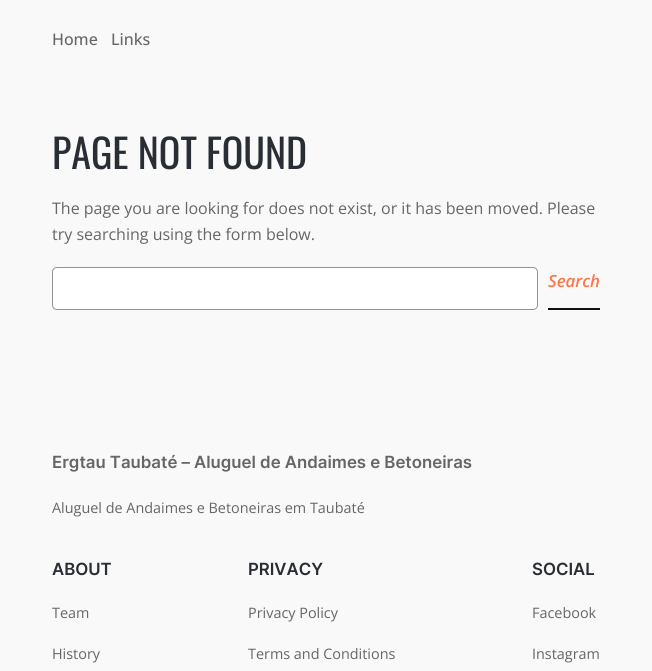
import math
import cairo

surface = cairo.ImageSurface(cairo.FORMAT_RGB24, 652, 671)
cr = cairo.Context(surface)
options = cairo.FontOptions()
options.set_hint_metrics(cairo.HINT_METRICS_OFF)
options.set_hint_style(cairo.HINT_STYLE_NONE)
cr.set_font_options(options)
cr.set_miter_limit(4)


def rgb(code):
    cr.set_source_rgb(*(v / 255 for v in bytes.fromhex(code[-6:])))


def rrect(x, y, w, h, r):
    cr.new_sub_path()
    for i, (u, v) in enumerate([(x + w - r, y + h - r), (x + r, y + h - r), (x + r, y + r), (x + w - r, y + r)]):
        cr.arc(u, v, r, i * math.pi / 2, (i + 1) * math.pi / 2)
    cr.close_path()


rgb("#f9f9f9")
cr.paint()
rgb("#ffffff")
rrect(52.5, 267.5, 485, 42, 4.5)
cr.fill_preserve()
rgb("#949494")
cr.set_line_width(1)
cr.stroke()
rgb("#111111")
cr.rectangle(548, 308, 52, 2)
cr.fill()
cr.select_font_face("Open Sans Medium")
cr.set_font_size(16)
rgb("#666666")
cr.move_to(52, 45)
cr.show_text("Home")
cr.move_to(111, 45)
cr.show_text("Links")
cr.select_font_face("Oswald")
cr.set_font_size(40)
rgb("#292d34")
cr.move_to(52, 169)
cr.show_text("PAGE NOT FOUND")
cr.select_font_face("Open Sans")
cr.set_font_size(16)
rgb("#666666")
cr.move_to(52, 214)
cr.show_text("The page you are looking for does not exist, or it has been moved. Please")
cr.move_to(52, 240)
cr.show_text("try searching using the form below.")
cr.select_font_face("Open Sans SemiBold", cairo.FONT_SLANT_ITALIC)
cr.set_font_size(16.8)
rgb("#fe7648")
cr.move_to(548, 287)
cr.show_text("Search")
cr.select_font_face("Inter SemiBold")
rgb("#666666")
cr.move_to(52, 468)
cr.show_text("Ergtau Taubaté – Aluguel de Andaimes e Betoneiras")
cr.select_font_face("Open Sans")
cr.set_font_size(14.4)
cr.move_to(52, 513)
cr.show_text("Aluguel de Andaimes e Betoneiras em Taubaté")
cr.select_font_face("Inter SemiBold")
cr.set_font_size(16.8)
rgb("#292d34")
cr.move_to(52, 575)
cr.show_text("ABOUT")
cr.select_font_face("Open Sans")
cr.set_font_size(14.4)
rgb("#666666")
cr.move_to(52, 618)
cr.show_text("Team")
cr.move_to(52, 659)
cr.show_text("History")
cr.select_font_face("Inter SemiBold")
cr.set_font_size(16.8)
rgb("#292d34")
cr.move_to(248, 575)
cr.show_text("PRIVACY")
cr.select_font_face("Open Sans")
cr.set_font_size(14.4)
rgb("#666666")
cr.move_to(248, 618)
cr.show_text("Privacy Policy")
cr.move_to(248, 659)
cr.show_text("Terms and Conditions")
cr.select_font_face("Inter SemiBold")
cr.set_font_size(16.8)
rgb("#292d34")
cr.move_to(532, 575)
cr.show_text("SOCIAL")
cr.select_font_face("Open Sans")
cr.set_font_size(14.4)
rgb("#666666")
cr.move_to(532, 618)
cr.show_text("Facebook")
cr.move_to(532, 659)
cr.show_text("Instagram")
surface.write_to_png("page.png")
